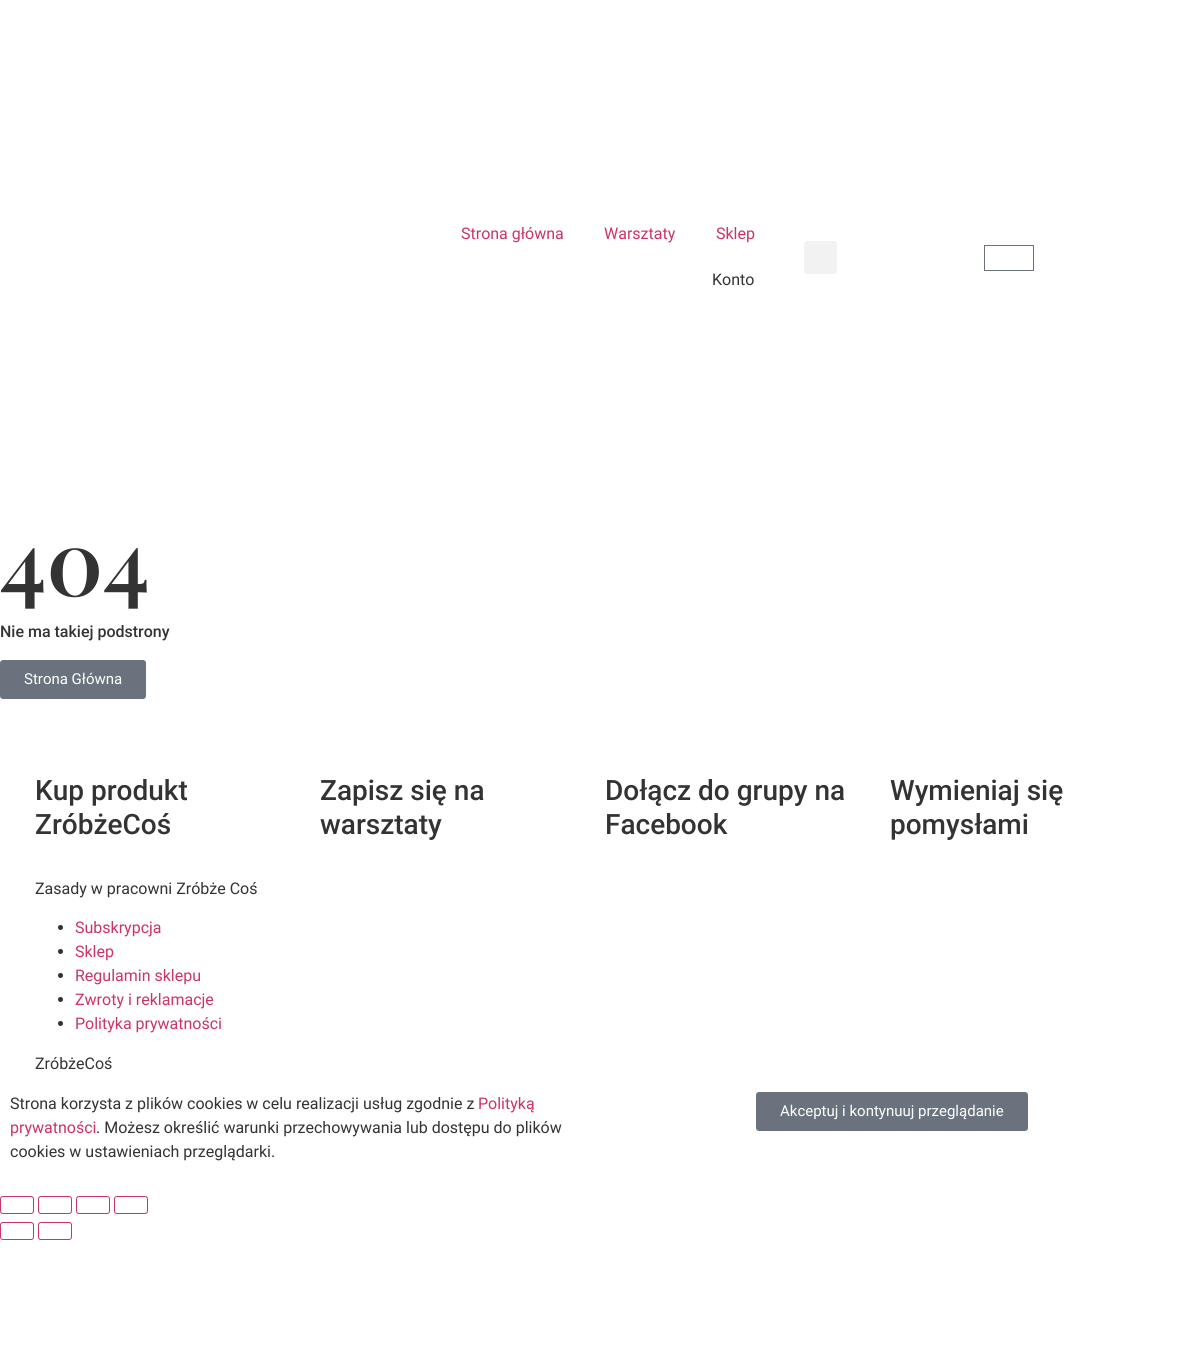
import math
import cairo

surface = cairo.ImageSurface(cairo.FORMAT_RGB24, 1189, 1358)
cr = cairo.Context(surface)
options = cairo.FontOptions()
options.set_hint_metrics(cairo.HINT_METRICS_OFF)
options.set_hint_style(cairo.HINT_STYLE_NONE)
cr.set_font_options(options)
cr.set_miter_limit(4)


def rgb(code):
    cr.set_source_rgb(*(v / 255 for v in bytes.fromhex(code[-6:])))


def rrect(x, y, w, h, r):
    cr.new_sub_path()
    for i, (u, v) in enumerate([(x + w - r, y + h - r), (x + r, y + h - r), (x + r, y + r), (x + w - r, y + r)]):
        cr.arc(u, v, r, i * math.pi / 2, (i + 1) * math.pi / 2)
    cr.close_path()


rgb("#ffffff")
cr.paint()
rgb("#f2f2f2")
rrect(804, 241, 33, 33, 3)
cr.fill()
cr.rectangle(984.5, 245.5, 49, 25)
rgb("#69727d")
cr.set_line_width(1)
cr.stroke()
rrect(0, 660, 146, 39, 3)
cr.fill()
rgb("#333333")
cr.arc(60.5, 927.5, 2.5, 0, 2 * math.pi)
cr.fill()
cr.arc(60.5, 951.5, 2.5, 0, 2 * math.pi)
cr.fill()
cr.arc(60.5, 975.5, 2.5, 0, 2 * math.pi)
cr.fill()
cr.arc(60.5, 999.5, 2.5, 0, 2 * math.pi)
cr.fill()
cr.arc(60.5, 1023.5, 2.5, 0, 2 * math.pi)
cr.fill()
rgb("#69727d")
rrect(756, 1092, 272, 39, 3)
cr.fill()
rrect(0.5, 1196.5, 33, 17, 2.5)
rgb("#cc3366")
cr.stroke()
rrect(38.5, 1196.5, 33, 17, 2.5)
cr.stroke()
rrect(76.5, 1196.5, 33, 17, 2.5)
cr.stroke()
rrect(114.5, 1196.5, 33, 17, 2.5)
cr.stroke()
rrect(0.5, 1222.5, 33, 17, 2.5)
cr.stroke()
rrect(38.5, 1222.5, 33, 17, 2.5)
cr.stroke()
cr.select_font_face("Roboto")
cr.set_font_size(16)
for x, y, s in [
    (461, 239, "Strona główna"),
    (604, 239, "Warsztaty"),
    (716, 239, "Sklep"),
]:
    cr.move_to(x, y)
    cr.show_text(s)
rgb("#333333")
cr.move_to(712, 285)
cr.show_text("Konto")
cr.select_font_face("Playfair Display SemiBold")
cr.set_font_size(90)
cr.move_to(0, 596)
cr.show_text("404")
cr.select_font_face("Roboto Medium")
cr.set_font_size(16)
cr.move_to(0, 637)
cr.show_text("Nie ma takiej podstrony")
cr.select_font_face("Roboto")
cr.set_font_size(15)
rgb("#ffffff")
cr.move_to(24, 684)
cr.show_text("Strona Główna")
cr.select_font_face("Roboto Medium")
cr.set_font_size(28)
rgb("#333333")
for x, y, s in [
    (35, 800, "Kup produkt"),
    (35, 834, "ZróbżeCoś"),
    (320, 800, "Zapisz się na"),
    (320, 834, "warsztaty"),
    (605, 800, "Dołącz do grupy na"),
    (605, 834, "Facebook"),
    (890, 800, "Wymieniaj się"),
    (890, 834, "pomysłami"),
]:
    cr.move_to(x, y)
    cr.show_text(s)
cr.select_font_face("Roboto")
cr.set_font_size(16)
cr.move_to(35, 894)
cr.show_text("Zasady w pracowni Zróbże Coś")
rgb("#cc3366")
for x, y, s in [
    (75, 933, "Subskrypcja"),
    (75, 957, "Sklep"),
    (75, 981, "Regulamin sklepu"),
    (75, 1005, "Zwroty i reklamacje"),
    (75, 1029, "Polityka prywatności"),
]:
    cr.move_to(x, y)
    cr.show_text(s)
rgb("#333333")
cr.move_to(35, 1069)
cr.show_text("ZróbżeCoś")
cr.move_to(10, 1109)
cr.show_text("Strona korzysta z plików cookies w celu realizacji usług zgodnie z")
rgb("#cc3366")
cr.move_to(478, 1109)
cr.show_text("Polityką")
cr.move_to(10, 1133)
cr.show_text("prywatności")
rgb("#333333")
cr.move_to(96, 1133)
cr.show_text(". Możesz określić warunki przechowywania lub dostępu do plików")
cr.move_to(10, 1157)
cr.show_text("cookies w ustawieniach przeglądarki.")
cr.set_font_size(15)
rgb("#ffffff")
cr.move_to(780, 1116)
cr.show_text("Akceptuj i kontynuuj przeglądanie")
surface.write_to_png("page.png")
